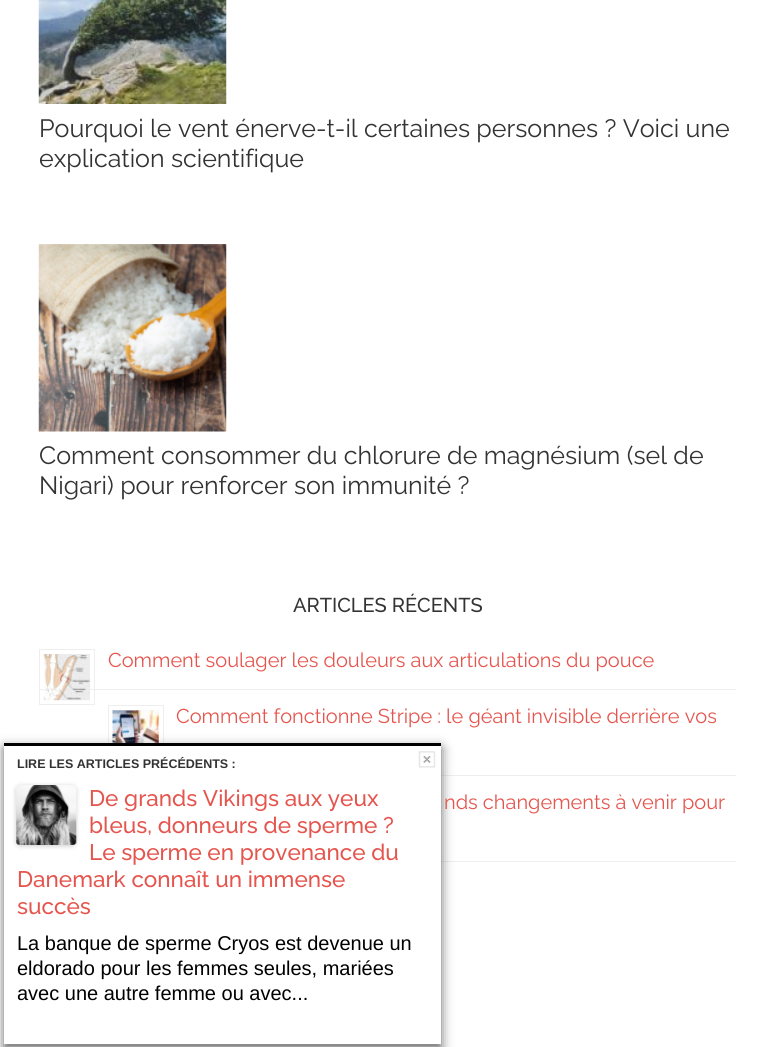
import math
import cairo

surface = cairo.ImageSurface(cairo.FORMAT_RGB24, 774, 1047)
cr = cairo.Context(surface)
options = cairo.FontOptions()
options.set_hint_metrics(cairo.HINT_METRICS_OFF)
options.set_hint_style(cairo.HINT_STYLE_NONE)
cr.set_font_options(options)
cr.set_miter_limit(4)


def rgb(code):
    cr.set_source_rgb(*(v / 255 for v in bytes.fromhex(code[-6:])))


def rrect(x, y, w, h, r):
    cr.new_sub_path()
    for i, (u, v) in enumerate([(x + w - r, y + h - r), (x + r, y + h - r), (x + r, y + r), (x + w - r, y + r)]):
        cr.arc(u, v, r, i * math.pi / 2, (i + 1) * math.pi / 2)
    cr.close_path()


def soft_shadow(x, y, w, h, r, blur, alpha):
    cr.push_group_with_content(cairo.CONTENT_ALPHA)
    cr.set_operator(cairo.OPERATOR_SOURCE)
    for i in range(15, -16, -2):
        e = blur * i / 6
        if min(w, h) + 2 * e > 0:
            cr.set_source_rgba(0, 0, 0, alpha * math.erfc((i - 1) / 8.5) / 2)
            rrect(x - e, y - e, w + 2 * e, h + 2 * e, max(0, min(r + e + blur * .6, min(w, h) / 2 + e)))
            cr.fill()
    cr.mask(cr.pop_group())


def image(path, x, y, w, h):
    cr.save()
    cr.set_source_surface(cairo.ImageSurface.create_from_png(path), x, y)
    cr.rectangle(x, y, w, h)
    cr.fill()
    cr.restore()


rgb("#ffffff")
cr.paint()
image("img/1.png", 38, 0, 189, 104)
image("img/2.png", 38, 244, 189, 188)
rgb("#eeeeee")
cr.rectangle(39, 689, 697, 1)
cr.fill()
cr.rectangle(39.5, 649.5, 55, 55)
cr.set_line_width(1)
cr.stroke()
image("img/3.png", 43, 654, 47, 47)
cr.rectangle(441, 775, 295, 1)
cr.fill()
cr.rectangle(108.5, 705.5, 55, 55)
cr.stroke()
image("img/4.png", 112, 710, 47, 33)
cr.rectangle(441, 861, 295, 1)
cr.fill()
rgb("#666666")
soft_shadow(4, 748, 437, 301, 0, 6, 1)
rgb("#ffffff")
cr.rectangle(4, 746, 437, 298)
cr.fill()
rgb("#000000")
cr.rectangle(4, 743, 437, 3)
cr.fill()
image("img/5.png", 418, 751, 18, 17)
rgb("#000000")
soft_shadow(16, 786, 60, 60, 4, 2.5, 0.2)
image("img/6.png", 16, 785, 61, 60)
cr.select_font_face("Raleway")
cr.set_font_size(25)
rgb("#333333")
for x, y, s in [
    (39, 137, "Pourquoi le vent énerve-t-il certaines personnes ? Voici une"),
    (39, 167, "explication scientifique"),
    (39, 464, "Comment consommer du chlorure de magnésium (sel de"),
    (39, 494, "Nigari) pour renforcer son immunité ?"),
]:
    cr.move_to(x, y)
    cr.show_text(s)
cr.select_font_face("Raleway Medium")
cr.set_font_size(20)
cr.move_to(293, 612)
cr.show_text("ARTICLES RÉCENTS")
cr.select_font_face("Raleway")
rgb("#e5554e")
for x, y, s in [
    (108, 667, "Comment soulager les douleurs aux articulations du pouce"),
    (176, 723, "Comment fonctionne Stripe : le géant invisible derrière vos"),
    (444, 809, "nds changements à venir pour"),
]:
    cr.move_to(x, y)
    cr.show_text(s)
cr.select_font_face("Liberation Sans", cairo.FONT_SLANT_NORMAL, cairo.FONT_WEIGHT_BOLD)
cr.set_font_size(12.5)
rgb("#333333")
cr.move_to(17, 768)
cr.show_text("LIRE LES ARTICLES PRÉCÉDENTS :")
cr.select_font_face("Raleway Medium")
cr.set_font_size(22.5)
rgb("#e5554e")
for x, y, s in [
    (89, 806, "De grands Vikings aux yeux"),
    (89, 833, "bleus, donneurs de sperme ?"),
    (89, 860, "Le sperme en provenance du"),
    (17, 887, "Danemark connaît un immense"),
    (17, 914, "succès"),
]:
    cr.move_to(x, y)
    cr.show_text(s)
cr.select_font_face("Liberation Sans")
cr.set_font_size(20)
rgb("#000000")
for x, y, s in [
    (17, 950, "La banque de sperme Cryos est devenue un"),
    (17, 975, "eldorado pour les femmes seules, mariées"),
    (17, 1000, "avec une autre femme ou avec..."),
]:
    cr.move_to(x, y)
    cr.show_text(s)
surface.write_to_png("page.png")
